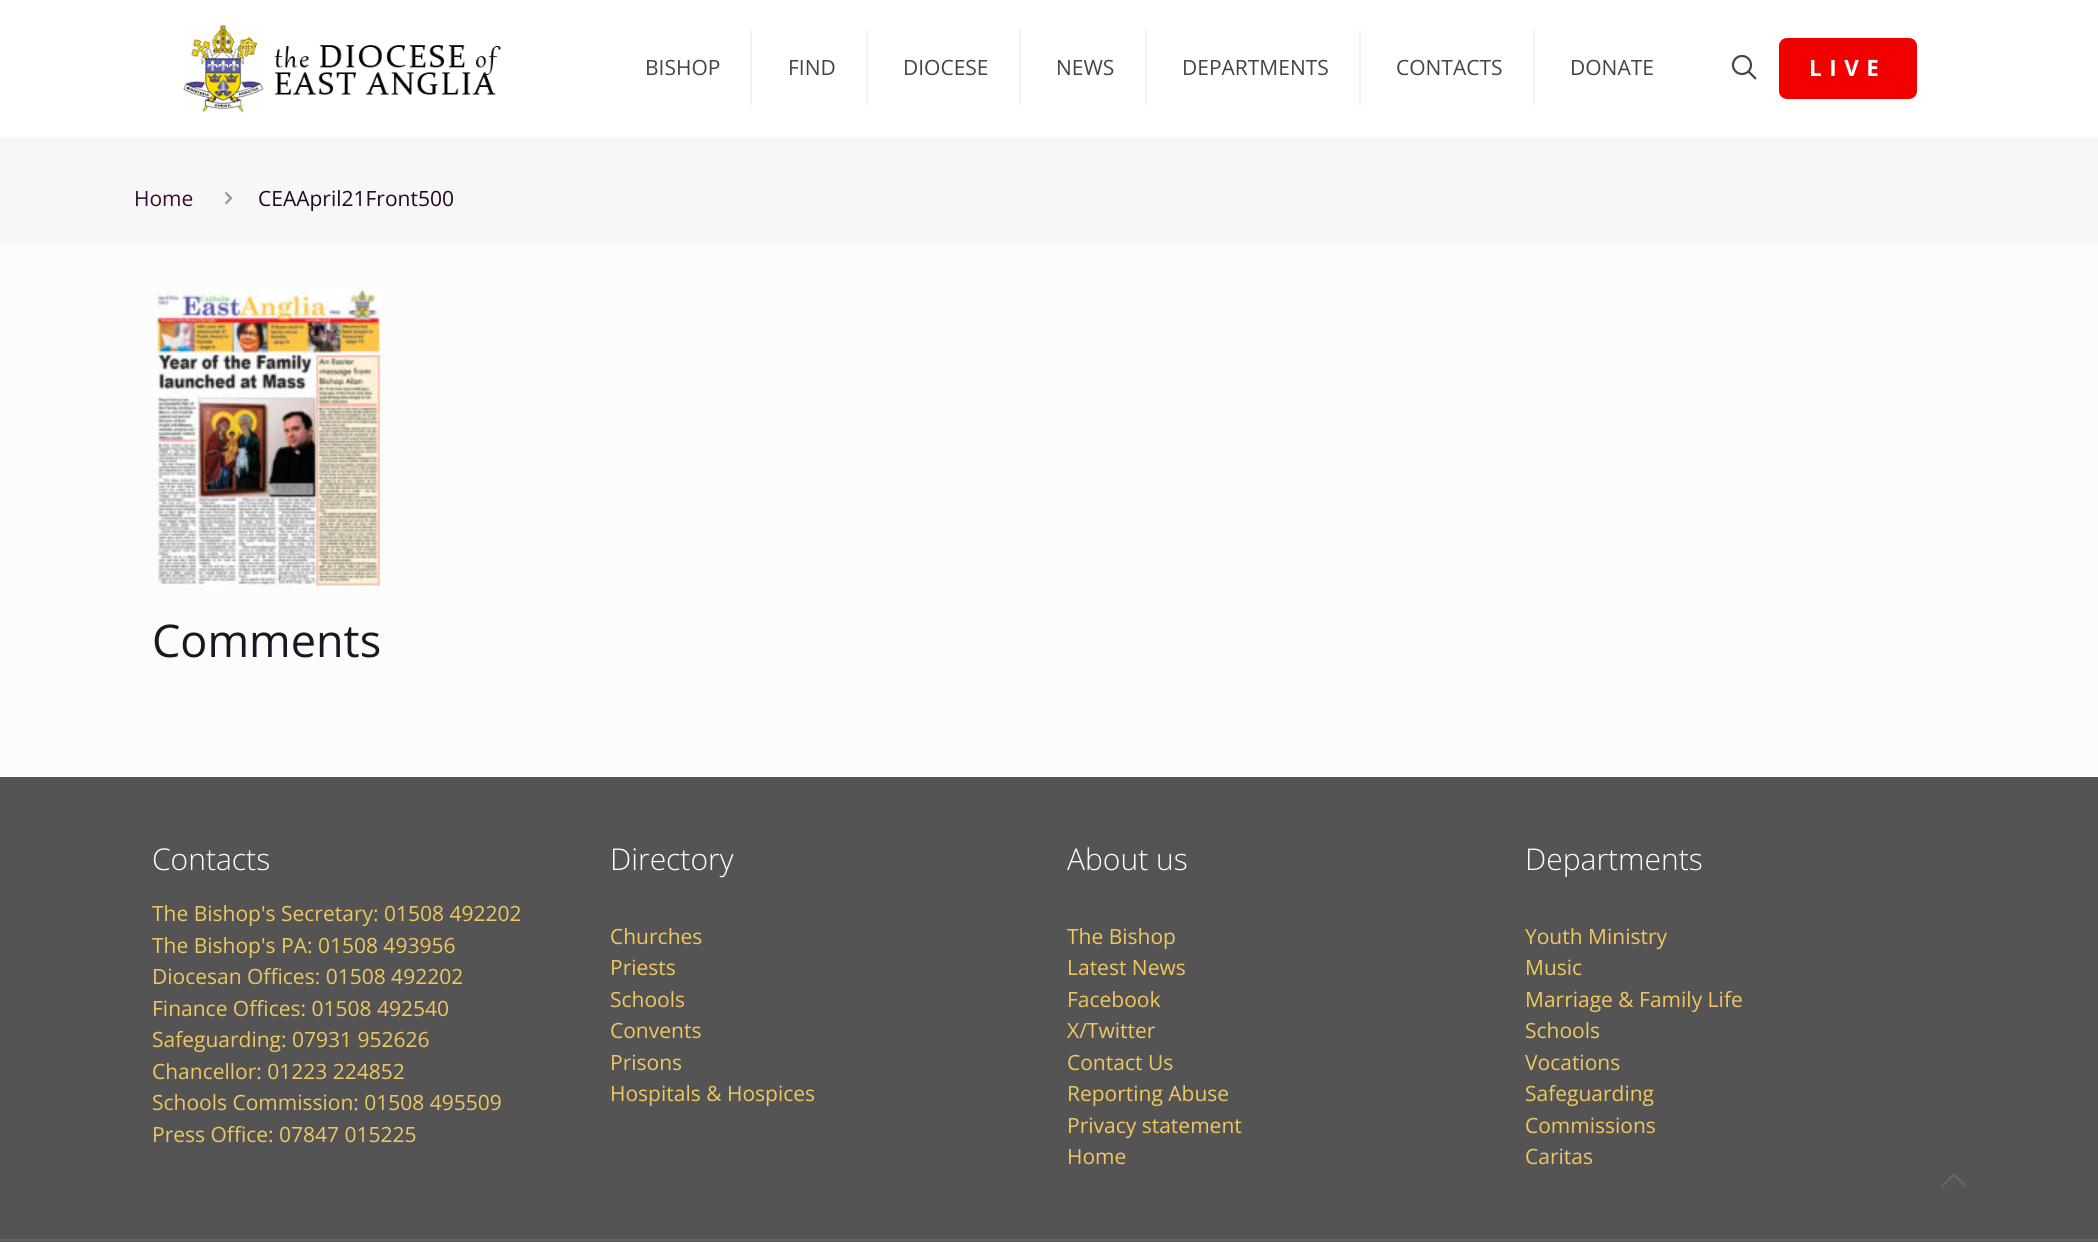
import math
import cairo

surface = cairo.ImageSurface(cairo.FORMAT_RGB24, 2098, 1242)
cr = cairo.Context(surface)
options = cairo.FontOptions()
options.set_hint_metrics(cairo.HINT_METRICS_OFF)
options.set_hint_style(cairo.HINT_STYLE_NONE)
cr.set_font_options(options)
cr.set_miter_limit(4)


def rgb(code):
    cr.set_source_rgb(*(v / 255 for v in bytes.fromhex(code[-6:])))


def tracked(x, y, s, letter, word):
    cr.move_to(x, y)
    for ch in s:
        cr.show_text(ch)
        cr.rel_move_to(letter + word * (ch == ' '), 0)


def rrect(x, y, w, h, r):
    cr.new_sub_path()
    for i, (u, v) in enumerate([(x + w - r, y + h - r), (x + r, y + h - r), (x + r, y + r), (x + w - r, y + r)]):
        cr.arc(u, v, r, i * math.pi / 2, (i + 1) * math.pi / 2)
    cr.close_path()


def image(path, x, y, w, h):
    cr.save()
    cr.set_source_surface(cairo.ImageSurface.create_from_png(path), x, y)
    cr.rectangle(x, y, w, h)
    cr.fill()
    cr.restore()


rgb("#fcfcfc")
cr.paint()
rgb("#ffffff")
cr.rectangle(0, 0, 2098, 137)
cr.fill()
image("img/1.png", 183, 24, 318, 89)
for x, y, w, h, color in [
    (750, 30, 2, 75, "#f2f2f2"),
    (866, 30, 2, 75, "#f2f2f2"),
    (1019, 30, 2, 75, "#f2f2f2"),
    (1145, 30, 2, 75, "#f2f2f2"),
    (1359, 30, 2, 75, "#f2f2f2"),
    (1533, 30, 2, 75, "#f2f2f2"),
]:
    rgb(color)
    cr.rectangle(x, y, w, h)
    cr.fill()
cr.arc(1742, 65, 9, 0, 2 * math.pi)
rgb("#444444")
cr.set_line_width(2.2)
cr.stroke()
cr.new_path()
cr.move_to(1748.5, 71.5)
cr.line_to(1756, 79)
cr.stroke()
rgb("#f20000")
rrect(1779, 38, 138, 61, 8)
cr.fill()
rgb("#f7f7f7")
cr.rectangle(0, 137, 2098, 106)
cr.fill()
image("img/2.png", 225, 192, 8, 13)
image("img/3.png", 153, 288, 229, 300)
rgb("#545454")
cr.rectangle(0, 777, 2098, 465)
cr.fill()
rgb("#656565")
cr.rectangle(0, 1239, 2098, 2)
cr.fill()
image("img/4.png", 1941, 1173, 26, 15)
cr.select_font_face("Open Sans")
cr.set_font_size(21)
rgb("#444444")
for x, y, s in [
    (645, 75, "BISHOP"),
    (788, 75, "FIND"),
    (903, 75, "DIOCESE"),
    (1056, 75, "NEWS"),
    (1182, 75, "DEPARTMENTS"),
    (1396, 75, "CONTACTS"),
    (1570, 75, "DONATE"),
]:
    cr.move_to(x, y)
    cr.show_text(s)
cr.select_font_face("Open Sans", cairo.FONT_SLANT_NORMAL, cairo.FONT_WEIGHT_BOLD)
cr.set_font_size(22.5)
rgb("#ffffff")
tracked(1809, 76, "LIVE", 7.5, 0)
cr.select_font_face("Open Sans")
cr.set_font_size(21)
rgb("#380b38")
cr.move_to(134, 206)
cr.show_text("Home")
rgb("#240524")
cr.move_to(258, 206)
cr.show_text("CEAApril21Front500")
cr.set_font_size(45)
rgb("#161922")
cr.move_to(152, 657)
cr.show_text("Comments")
cr.select_font_face("Open Sans Light")
cr.set_font_size(30)
rgb("#ffffff")
cr.move_to(152, 870)
cr.show_text("Contacts")
cr.select_font_face("Open Sans")
cr.set_font_size(21)
rgb("#f0c760")
for x, y, s in [
    (152, 921, "The Bishop's Secretary: 01508 492202"),
    (152, 953, "The Bishop's PA: 01508 493956"),
    (152, 984, "Diocesan Offices: 01508 492202"),
    (152, 1016, "Finance Offices: 01508 492540"),
    (152, 1047, "Safeguarding: 07931 952626"),
    (152, 1079, "Chancellor: 01223 224852"),
    (152, 1110, "Schools Commission: 01508 495509"),
    (152, 1142, "Press Office: 07847 015225"),
]:
    cr.move_to(x, y)
    cr.show_text(s)
cr.select_font_face("Open Sans Light")
cr.set_font_size(30)
rgb("#ffffff")
cr.move_to(610, 870)
cr.show_text("Directory")
cr.select_font_face("Open Sans")
cr.set_font_size(21)
rgb("#f0c760")
for x, y, s in [
    (610, 944, "Churches"),
    (610, 975, "Priests"),
    (610, 1007, "Schools"),
    (610, 1038, "Convents"),
    (610, 1070, "Prisons"),
    (610, 1101, "Hospitals & Hospices"),
]:
    cr.move_to(x, y)
    cr.show_text(s)
cr.select_font_face("Open Sans Light")
cr.set_font_size(30)
rgb("#ffffff")
cr.move_to(1067, 870)
cr.show_text("About us")
cr.select_font_face("Open Sans")
cr.set_font_size(21)
rgb("#f0c760")
for x, y, s in [
    (1067, 944, "The Bishop"),
    (1067, 975, "Latest News"),
    (1067, 1007, "Facebook"),
    (1067, 1038, "X/Twitter"),
    (1067, 1070, "Contact Us"),
    (1067, 1101, "Reporting Abuse"),
    (1067, 1133, "Privacy statement"),
    (1067, 1164, "Home"),
]:
    cr.move_to(x, y)
    cr.show_text(s)
cr.select_font_face("Open Sans Light")
cr.set_font_size(30)
rgb("#ffffff")
cr.move_to(1525, 870)
cr.show_text("Departments")
cr.select_font_face("Open Sans")
cr.set_font_size(21)
rgb("#f0c760")
for x, y, s in [
    (1525, 944, "Youth Ministry"),
    (1525, 975, "Music"),
    (1525, 1007, "Marriage & Family Life"),
    (1525, 1038, "Schools"),
    (1525, 1070, "Vocations"),
    (1525, 1101, "Safeguarding"),
    (1525, 1133, "Commissions"),
    (1525, 1164, "Caritas"),
]:
    cr.move_to(x, y)
    cr.show_text(s)
surface.write_to_png("page.png")
